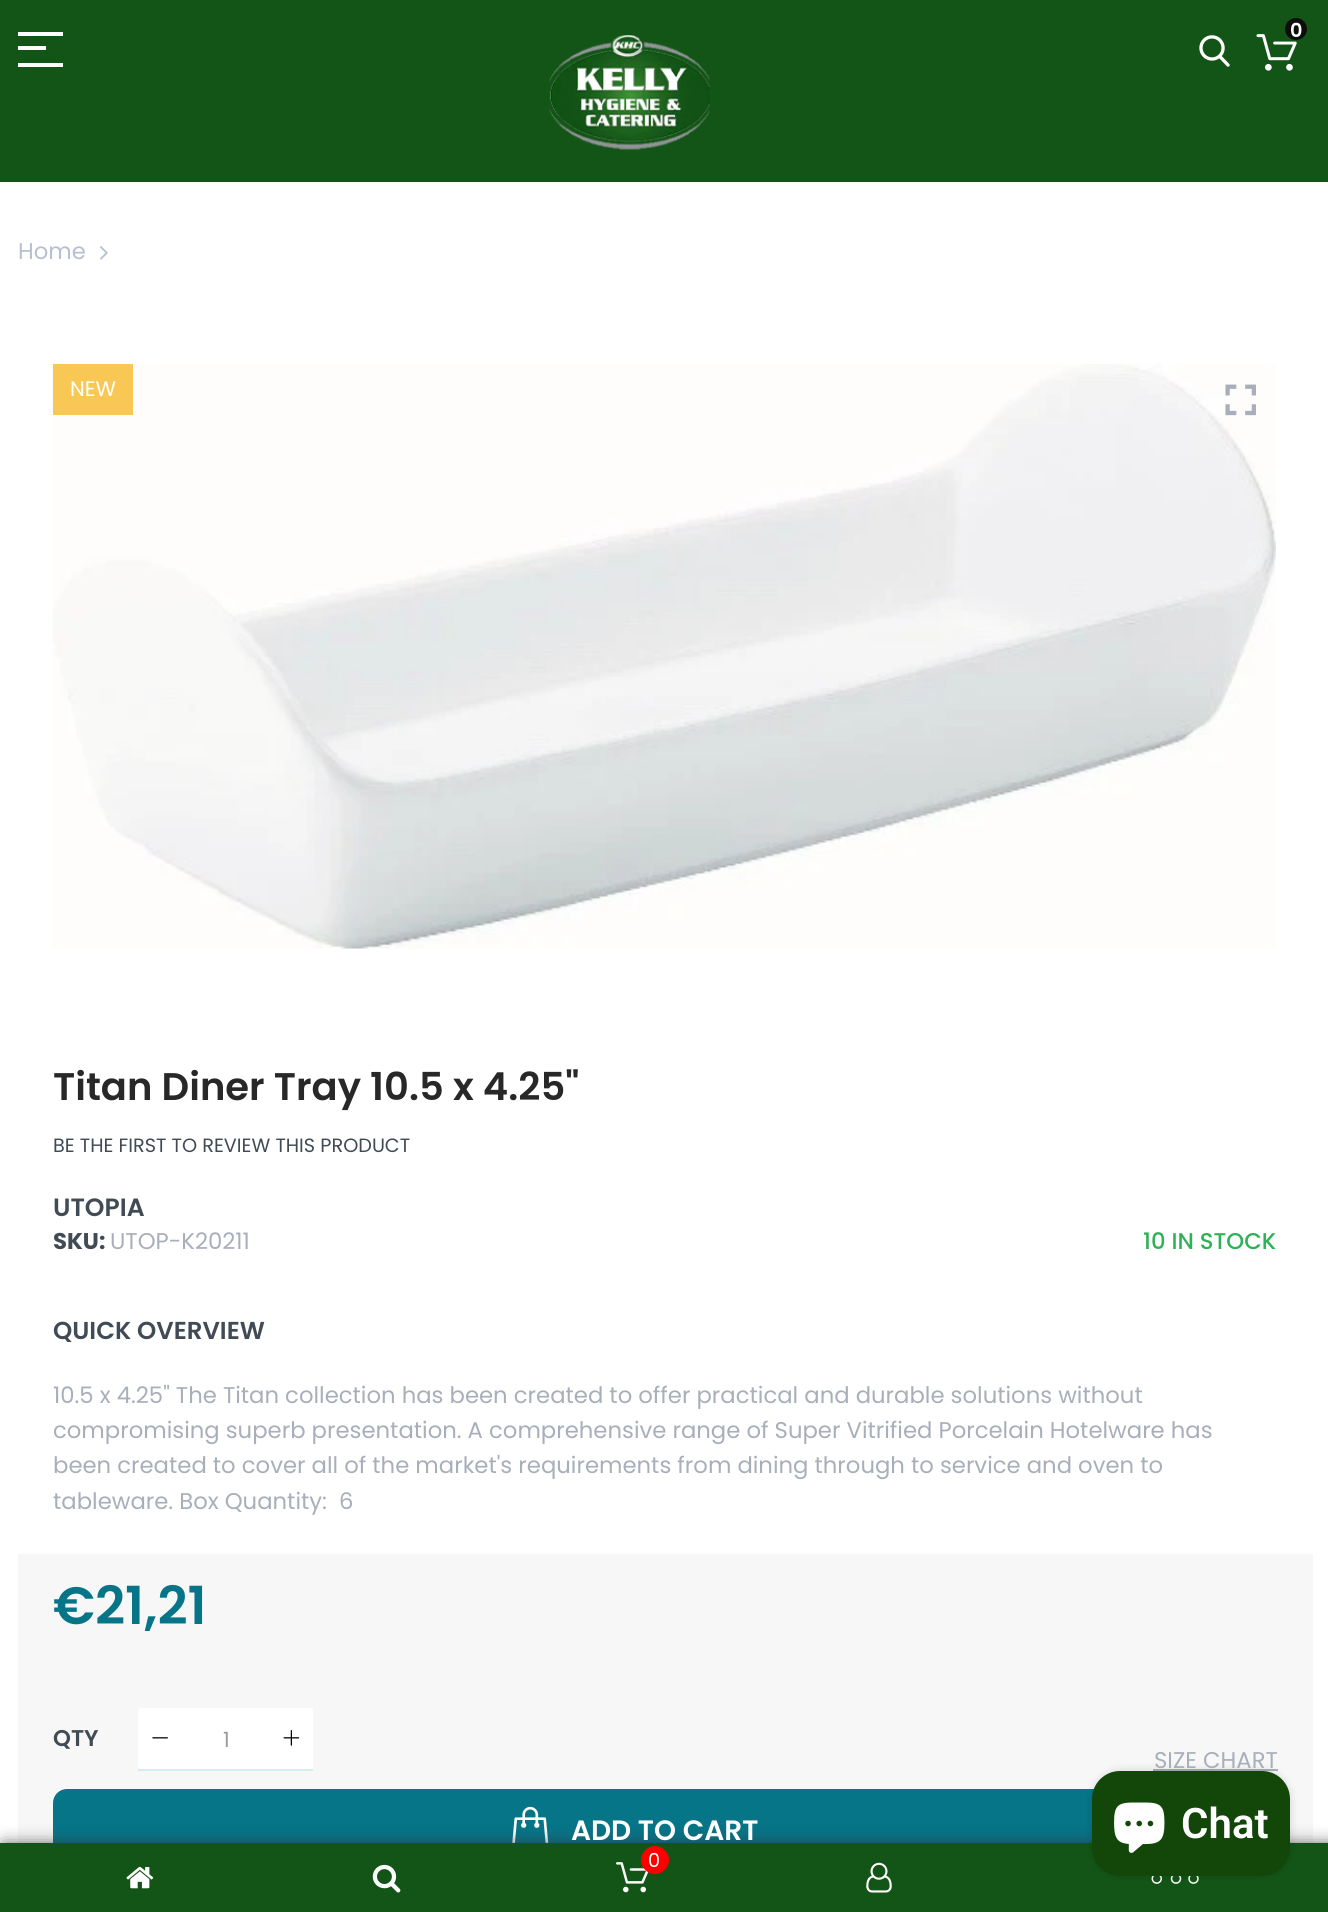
import math
import cairo

surface = cairo.ImageSurface(cairo.FORMAT_RGB24, 1328, 1912)
cr = cairo.Context(surface)
options = cairo.FontOptions()
options.set_hint_metrics(cairo.HINT_METRICS_OFF)
options.set_hint_style(cairo.HINT_STYLE_NONE)
cr.set_font_options(options)
cr.set_miter_limit(4)


def rgb(code):
    cr.set_source_rgb(*(v / 255 for v in bytes.fromhex(code[-6:])))


def rrect(x, y, w, h, r):
    cr.new_sub_path()
    for i, (u, v) in enumerate([(x + w - r, y + h - r), (x + r, y + h - r), (x + r, y + r), (x + w - r, y + r)]):
        cr.arc(u, v, r, i * math.pi / 2, (i + 1) * math.pi / 2)
    cr.close_path()


def soft_shadow(x, y, w, h, r, blur, alpha):
    cr.push_group_with_content(cairo.CONTENT_ALPHA)
    cr.set_operator(cairo.OPERATOR_SOURCE)
    for i in range(15, -16, -2):
        e = blur * i / 6
        if min(w, h) + 2 * e > 0:
            cr.set_source_rgba(0, 0, 0, alpha * math.erfc((i - 1) / 8.5) / 2)
            rrect(x - e, y - e, w + 2 * e, h + 2 * e, max(0, min(r + e + blur * .6, min(w, h) / 2 + e)))
            cr.fill()
    cr.mask(cr.pop_group())


def image(path, x, y, w, h):
    cr.save()
    cr.set_source_surface(cairo.ImageSurface.create_from_png(path), x, y)
    cr.rectangle(x, y, w, h)
    cr.fill()
    cr.restore()


rgb("#ffffff")
cr.paint()
rgb("#135517")
cr.rectangle(0, 0, 1328, 182)
cr.fill()
image("img/1.png", 1256, 34, 41, 37)
rgb("#0d0d0d")
cr.arc(1296, 29, 11, 0, 2 * math.pi)
cr.fill()
for x, y, w, h, color in [
    (18, 32, 45, 4, "#ffffff"),
    (18, 63, 45, 4, "#ffffff"),
    (18, 46, 28, 4, "#ffffff"),
]:
    rgb(color)
    cr.rectangle(x, y, w, h)
    cr.fill()
image("img/2.png", 549, 35, 161, 115)
image("img/3.png", 1199, 35, 31, 32)
image("img/4.png", 100, 246, 8, 14)
image("img/5.png", 52, 364, 1224, 585)
rgb("#f9c854")
cr.rectangle(53, 364, 80, 51)
cr.fill()
image("img/6.png", 1225, 384, 31, 32)
rgb("#f7f7f7")
cr.rectangle(18, 1554, 1295, 289)
cr.fill()
rgb("#d7ebf4")
cr.rectangle(138, 1769, 175, 2)
cr.fill()
rgb("#ffffff")
rrect(138, 1708, 175, 61, 2)
cr.fill()
image("img/7.png", 152, 1737, 16, 2)
image("img/8.png", 283, 1730, 17, 16)
rgb("#a8aeba")
cr.rectangle(1153, 1769, 125, 2)
cr.fill()
rgb("#067588")
rrect(54, 1790, 1223, 82, 13)
cr.fill_preserve()
cr.stroke()
image("img/9.png", 512, 1806, 37, 37)
rgb("#333333")
soft_shadow(4, 1846, 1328, 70, 0, 9, 1)
rgb("#135517")
cr.rectangle(0, 1843, 1328, 69)
cr.fill()
image("img/15.png", 1151, 1876, 11, 8)
image("img/16.png", 1170, 1876, 12, 8)
image("img/17.png", 1188, 1876, 11, 8)
rgb("#000000")
soft_shadow(1092, 1771, 198, 105, 28, 4.5, 0.15)
rgb("#13470a")
rrect(1092, 1771, 198, 105, 28)
cr.fill()
image("img/10.png", 1114, 1802, 51, 51)
image("img/11.png", 616, 1862, 33, 31)
rgb("#ff0000")
cr.arc(655, 1860, 14, 0, 2 * math.pi)
cr.fill()
image("img/12.png", 126, 1867, 28, 22)
image("img/13.png", 372, 1864, 29, 29)
image("img/14.png", 866, 1862, 26, 31)
cr.select_font_face("Poppins SemiBold")
cr.set_font_size(19.25)
rgb("#ffffff")
cr.move_to(1290, 37)
cr.show_text("0")
cr.select_font_face("Poppins")
cr.set_font_size(22.75)
rgb("#b9bed1")
cr.move_to(18, 259)
cr.show_text("Home")
cr.set_font_size(21)
rgb("#ffffff")
cr.move_to(70, 396)
cr.show_text("NEW")
cr.select_font_face("Poppins SemiBold")
cr.set_font_size(38.5)
rgb("#282828")
cr.move_to(53, 1100)
cr.show_text("Titan Diner Tray 10.5 x 4.25\"")
cr.select_font_face("Poppins")
cr.set_font_size(19.25)
rgb("#414b56")
cr.move_to(53, 1152)
cr.show_text("BE THE FIRST TO REVIEW THIS PRODUCT")
cr.select_font_face("Poppins SemiBold")
cr.set_font_size(25)
cr.move_to(53, 1216)
cr.show_text("UTOPIA")
cr.select_font_face("Poppins", cairo.FONT_SLANT_NORMAL, cairo.FONT_WEIGHT_BOLD)
cr.set_font_size(22.75)
cr.move_to(53, 1249)
cr.show_text("SKU:")
cr.select_font_face("Poppins")
rgb("#a8aeba")
cr.move_to(110, 1249)
cr.show_text("UTOP-K20211")
cr.select_font_face("Poppins Medium")
rgb("#2fb157")
cr.move_to(1143, 1249)
cr.show_text("10 IN STOCK")
cr.select_font_face("Poppins SemiBold")
cr.set_font_size(24.5)
rgb("#414b56")
cr.move_to(53, 1339)
cr.show_text("QUICK OVERVIEW")
cr.select_font_face("Poppins")
cr.set_font_size(22.75)
rgb("#a8aeba")
for x, y, s in [
    (53, 1403, "10.5 x 4.25\" The Titan collection has been created to offer practical and durable solutions without"),
    (53, 1438, "compromising superb presentation. A comprehensive range of Super Vitrified Porcelain Hotelware has"),
    (53, 1473, "been created to cover all of the market's requirements from dining through to service and oven to"),
    (53, 1509, "tableware. Box Quantity:  6"),
]:
    cr.move_to(x, y)
    cr.show_text(s)
cr.select_font_face("Poppins SemiBold")
cr.set_font_size(52.5)
rgb("#067588")
cr.move_to(53, 1624)
cr.show_text("€21,21")
cr.set_font_size(22.75)
rgb("#414b56")
cr.move_to(53, 1746)
cr.show_text("QTY")
cr.select_font_face("Poppins")
cr.set_font_size(21)
rgb("#9c9c9c")
cr.move_to(223, 1747)
cr.show_text("1")
cr.set_font_size(22.75)
rgb("#a8aeba")
cr.move_to(1154, 1768)
cr.show_text("SIZE CHART")
cr.select_font_face("Poppins SemiBold")
cr.set_font_size(28)
rgb("#ffffff")
cr.move_to(571, 1840)
cr.show_text("ADD TO CART")
cr.select_font_face("Roboto SemiBold")
cr.set_font_size(42)
cr.move_to(1181, 1838)
cr.show_text("Chat")
cr.select_font_face("Poppins")
cr.set_font_size(19.25)
cr.move_to(648, 1867)
cr.show_text("0")
surface.write_to_png("page.png")
